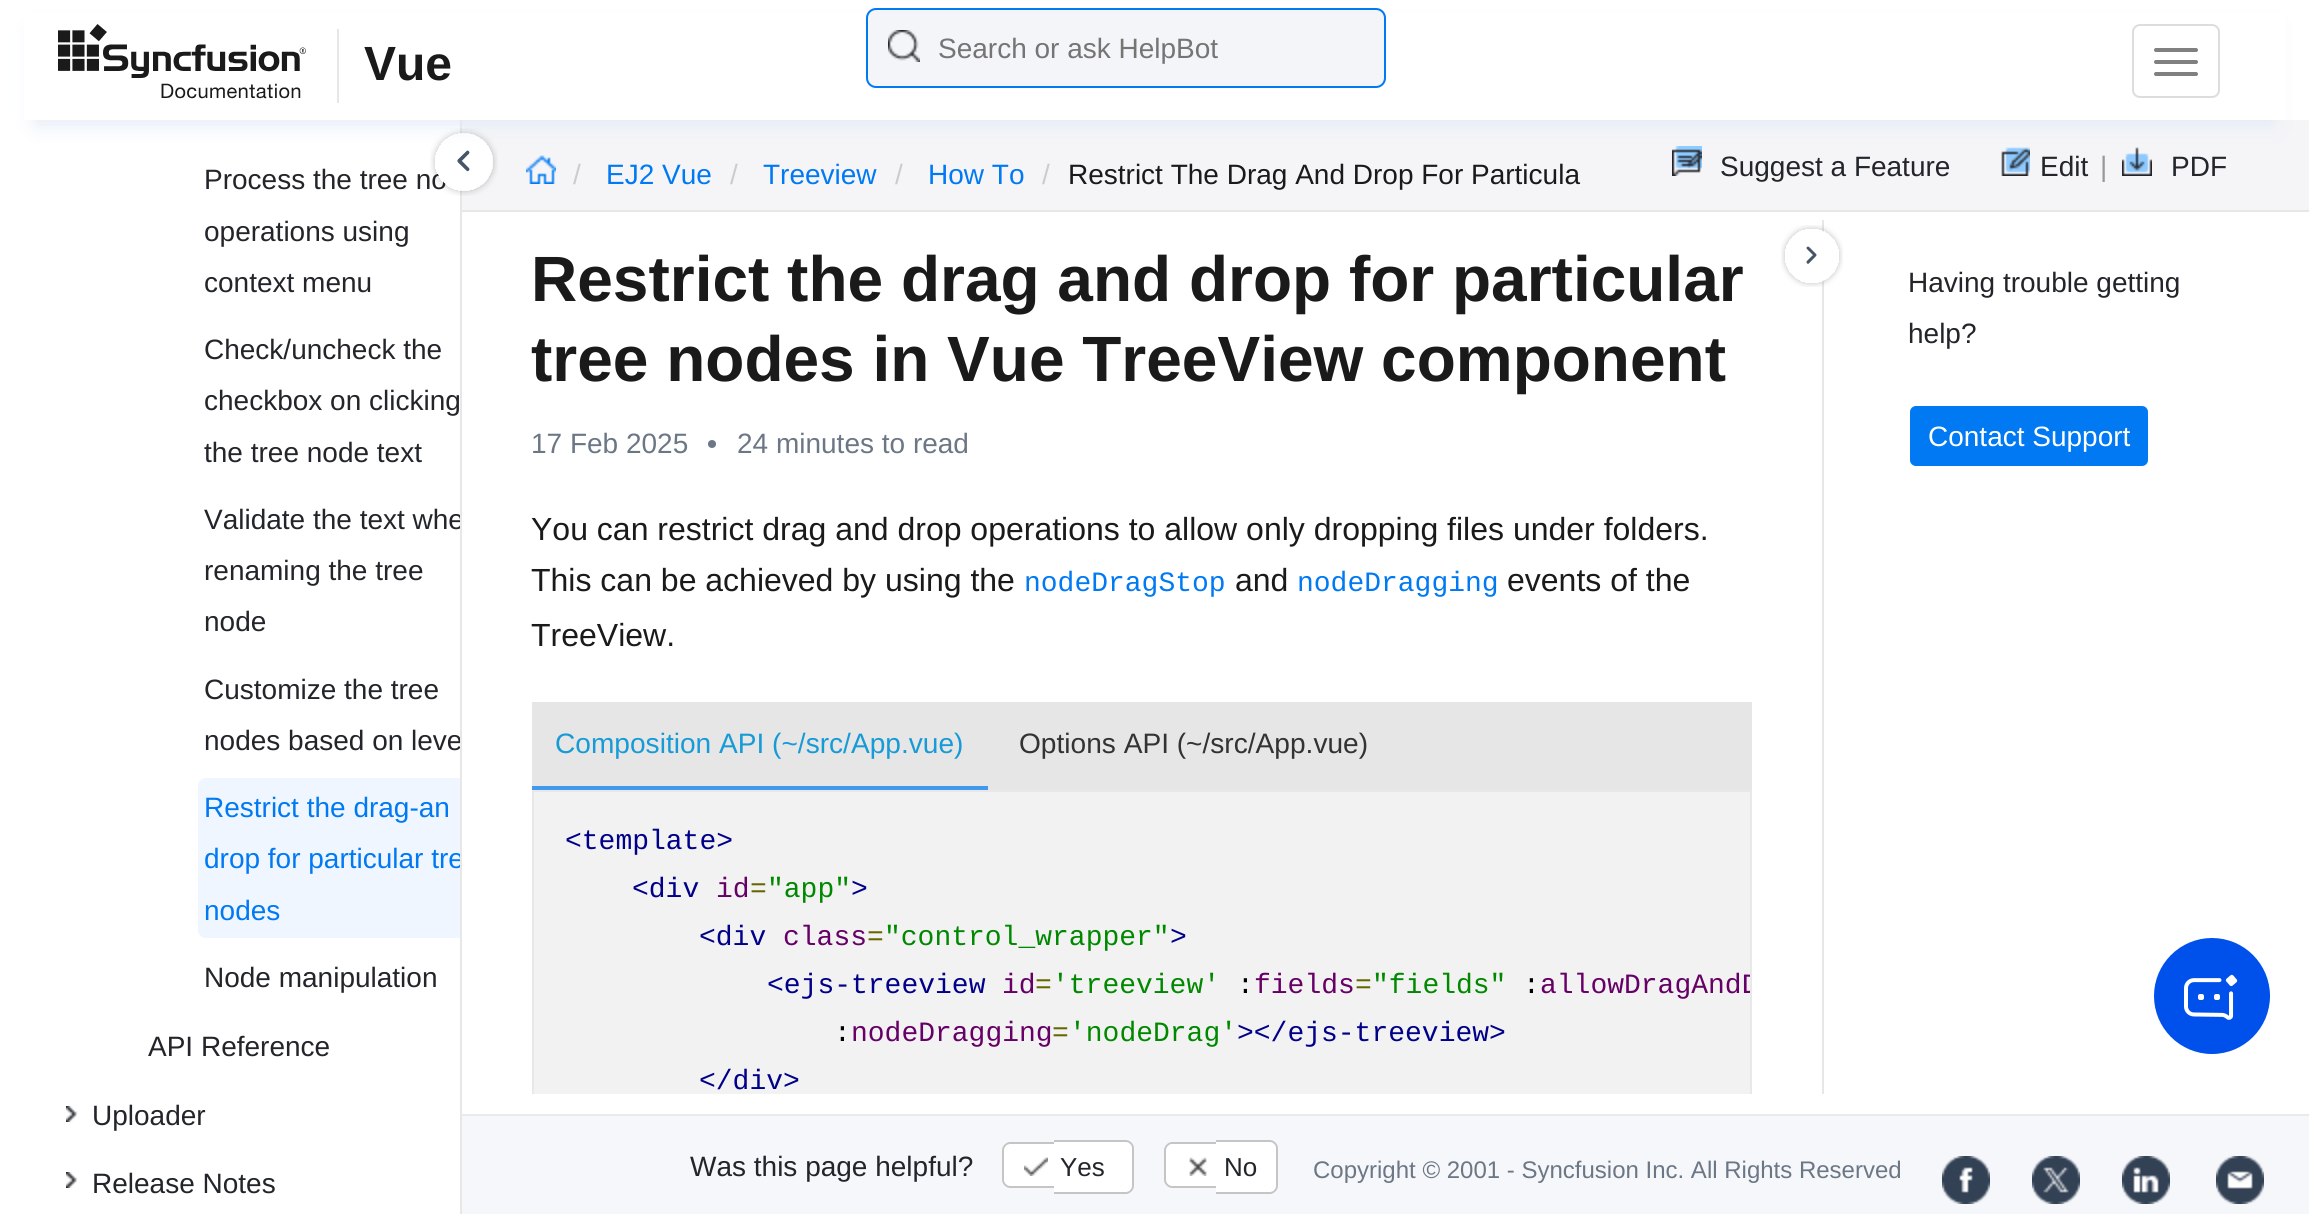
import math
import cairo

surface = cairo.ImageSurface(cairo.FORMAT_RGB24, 2309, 1214)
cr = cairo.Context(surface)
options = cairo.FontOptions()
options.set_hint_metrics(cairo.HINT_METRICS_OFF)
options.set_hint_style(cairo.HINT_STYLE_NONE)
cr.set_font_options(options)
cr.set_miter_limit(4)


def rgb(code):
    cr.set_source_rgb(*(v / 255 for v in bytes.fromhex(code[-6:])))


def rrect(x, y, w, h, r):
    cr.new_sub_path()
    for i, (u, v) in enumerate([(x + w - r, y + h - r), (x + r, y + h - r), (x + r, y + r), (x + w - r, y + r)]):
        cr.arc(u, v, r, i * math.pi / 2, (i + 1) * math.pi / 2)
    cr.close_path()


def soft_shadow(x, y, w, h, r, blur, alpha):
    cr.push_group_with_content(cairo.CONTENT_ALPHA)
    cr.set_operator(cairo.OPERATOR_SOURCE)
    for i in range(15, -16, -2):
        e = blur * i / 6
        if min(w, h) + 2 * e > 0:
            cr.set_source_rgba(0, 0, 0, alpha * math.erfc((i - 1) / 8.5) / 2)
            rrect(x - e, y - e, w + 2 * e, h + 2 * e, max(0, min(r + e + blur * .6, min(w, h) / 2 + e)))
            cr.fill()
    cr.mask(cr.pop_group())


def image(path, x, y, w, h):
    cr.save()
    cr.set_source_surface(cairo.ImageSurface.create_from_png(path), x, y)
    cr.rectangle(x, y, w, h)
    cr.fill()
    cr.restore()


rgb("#ffffff")
cr.paint()
rgb("#f5f5f7")
cr.rectangle(462, 120, 1847, 90)
cr.fill()
rgb("#e7e7e7")
cr.rectangle(462, 210, 1847, 2)
cr.fill()
image("img/3.png", 526, 155, 30, 29)
image("img/4.png", 1672, 146, 30, 30)
image("img/5.png", 2001, 147, 29, 29)
image("img/6.png", 2122, 147, 30, 29)
cr.rectangle(460, 120, 2, 1094)
cr.fill()
rgb("#eff6ff")
cr.new_path()
cr.move_to(206, 778)
cr.line_to(460, 778)
cr.line_to(460, 938)
cr.line_to(206, 938)
cr.curve_to(201.5, 938, 198, 934.5, 198, 930)
cr.line_to(198, 786)
cr.curve_to(198, 781.5, 201.5, 778, 206, 778)
cr.close_path()
cr.fill()
image("img/7.png", 66, 1106, 12, 16)
image("img/7.png", 66, 1172, 12, 16)
rgb("#e7e7e7")
cr.rectangle(1822, 220, 2, 874)
cr.fill()
rgb("#6c7786")
cr.arc(712, 444, 4, 0, 2 * math.pi)
cr.fill()
for x, y, w, h, color in [
    (988, 702, 764, 88, "#e6e6e6"),
    (532, 702, 456, 84, "#e6e6e6"),
    (532, 786, 456, 4, "#4198ef"),
    (534, 792, 1216, 302, "#f2f2f2"),
]:
    rgb(color)
    cr.rectangle(x, y, w, h)
    cr.fill()
cr.save()
cr.rectangle(532, 220, 1290, 874)
cr.clip()
cr.rectangle(533, 791, 1218, 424)
rgb("#e8e8e8")
cr.stroke()
cr.restore()
image("img/9.png", 1781, 225, 62, 62)
rgb("#0079f3")
rrect(1909, 405, 240, 62, 7)
cr.fill_preserve()
rgb("#ffffff")
cr.stroke()
rgb("#0050eb")
cr.arc(2212, 996, 58, 0, 2 * math.pi)
cr.fill()
image("img/10.png", 2184, 974, 54, 46)
rgb("#f5f7fa")
cr.rectangle(462, 1116, 1847, 98)
cr.fill()
rgb("#eaeaea")
cr.rectangle(462, 1114, 1847, 2)
cr.fill()
rgb("#ffffff")
cr.new_path()
cr.move_to(1010, 1142)
cr.line_to(1054, 1142)
cr.line_to(1054, 1188)
cr.line_to(1010, 1188)
cr.curve_to(1005.5, 1188, 1002, 1184.5, 1002, 1180)
cr.line_to(1002, 1150)
cr.curve_to(1002, 1145.5, 1005.5, 1142, 1010, 1142)
cr.close_path()
cr.fill()
rgb("#c5c5c5")
cr.set_fill_rule(cairo.FILL_RULE_EVEN_ODD)
cr.new_path()
cr.move_to(1010, 1142)
cr.line_to(1054, 1142)
cr.line_to(1054, 1188)
cr.line_to(1010, 1188)
cr.curve_to(1006, 1188, 1002, 1184, 1002, 1180)
cr.line_to(1002, 1150)
cr.curve_to(1002, 1146, 1006, 1142, 1010, 1142)
cr.close_path()
cr.move_to(1010, 1144)
cr.line_to(1054, 1144)
cr.line_to(1054, 1186)
cr.line_to(1010, 1186)
cr.curve_to(1007, 1186, 1004, 1183, 1004, 1180)
cr.line_to(1004, 1150)
cr.curve_to(1004, 1147, 1007, 1144, 1010, 1144)
cr.close_path()
cr.fill()
rgb("#ffffff")
cr.new_path()
cr.move_to(1054, 1140)
cr.line_to(1126, 1140)
cr.curve_to(1130.5, 1140, 1134, 1143.5, 1134, 1148)
cr.line_to(1134, 1186)
cr.curve_to(1134, 1190.5, 1130.5, 1194, 1126, 1194)
cr.line_to(1054, 1194)
cr.close_path()
cr.fill()
rgb("#c5c5c5")
cr.new_path()
cr.move_to(1054, 1140)
cr.line_to(1126, 1140)
cr.curve_to(1130, 1140, 1134, 1144, 1134, 1148)
cr.line_to(1134, 1186)
cr.curve_to(1134, 1190, 1130, 1194, 1126, 1194)
cr.line_to(1054, 1194)
cr.close_path()
cr.move_to(1054, 1142)
cr.line_to(1126, 1142)
cr.curve_to(1129, 1142, 1132, 1145, 1132, 1148)
cr.line_to(1132, 1186)
cr.curve_to(1132, 1189, 1129, 1192, 1126, 1192)
cr.line_to(1054, 1192)
cr.close_path()
cr.fill()
image("img/11.png", 1024, 1157, 24, 19)
rgb("#ffffff")
cr.new_path()
cr.move_to(1172, 1142)
cr.line_to(1216, 1142)
cr.line_to(1216, 1188)
cr.line_to(1172, 1188)
cr.curve_to(1167.5, 1188, 1164, 1184.5, 1164, 1180)
cr.line_to(1164, 1150)
cr.curve_to(1164, 1145.5, 1167.5, 1142, 1172, 1142)
cr.close_path()
cr.fill()
rgb("#c5c5c5")
cr.new_path()
cr.move_to(1172, 1142)
cr.line_to(1216, 1142)
cr.line_to(1216, 1188)
cr.line_to(1172, 1188)
cr.curve_to(1168, 1188, 1164, 1184, 1164, 1180)
cr.line_to(1164, 1150)
cr.curve_to(1164, 1146, 1168, 1142, 1172, 1142)
cr.close_path()
cr.move_to(1172, 1144)
cr.line_to(1216, 1144)
cr.line_to(1216, 1186)
cr.line_to(1172, 1186)
cr.curve_to(1169, 1186, 1166, 1183, 1166, 1180)
cr.line_to(1166, 1150)
cr.curve_to(1166, 1147, 1169, 1144, 1172, 1144)
cr.close_path()
cr.fill()
rgb("#ffffff")
cr.new_path()
cr.move_to(1216, 1140)
cr.line_to(1270, 1140)
cr.curve_to(1274.5, 1140, 1278, 1143.5, 1278, 1148)
cr.line_to(1278, 1186)
cr.curve_to(1278, 1190.5, 1274.5, 1194, 1270, 1194)
cr.line_to(1216, 1194)
cr.close_path()
cr.fill()
rgb("#c5c5c5")
cr.new_path()
cr.move_to(1216, 1140)
cr.line_to(1270, 1140)
cr.curve_to(1274, 1140, 1278, 1144, 1278, 1148)
cr.line_to(1278, 1186)
cr.curve_to(1278, 1190, 1274, 1194, 1270, 1194)
cr.line_to(1216, 1194)
cr.close_path()
cr.move_to(1216, 1142)
cr.line_to(1270, 1142)
cr.curve_to(1273, 1142, 1276, 1145, 1276, 1148)
cr.line_to(1276, 1186)
cr.curve_to(1276, 1189, 1273, 1192, 1270, 1192)
cr.line_to(1216, 1192)
cr.close_path()
cr.fill()
image("img/12.png", 1189, 1157, 18, 19)
image("img/13.png", 1942, 1156, 48, 48)
image("img/14.png", 2032, 1156, 48, 48)
image("img/15.png", 2122, 1156, 48, 48)
image("img/16.png", 2216, 1156, 48, 48)
cr.select_font_face("Liberation Sans")
cr.set_font_size(28)
rgb("#cccccc")
cr.move_to(573, 184)
cr.show_text("/")
rgb("#0079f3")
cr.move_to(606, 184)
cr.show_text("EJ2 Vue")
rgb("#cccccc")
cr.move_to(730, 184)
cr.show_text("/")
rgb("#0079f3")
cr.move_to(763, 184)
cr.show_text("Treeview")
rgb("#cccccc")
cr.move_to(895, 184)
cr.show_text("/")
rgb("#0079f3")
cr.move_to(928, 184)
cr.show_text("How To")
rgb("#cccccc")
cr.move_to(1042, 184)
cr.show_text("/")
rgb("#1a1a1a")
cr.move_to(1068, 184)
cr.show_text("Restrict The Drag And Drop For Particula")
rgb("#22252a")
cr.move_to(1720, 176)
cr.show_text("Suggest a Feature")
cr.move_to(2040, 176)
cr.show_text("Edit")
rgb("#979797")
cr.move_to(2100, 176)
cr.show_text("|")
rgb("#22252a")
for x, y, s in [
    (2171, 176, "PDF"),
    (204, 189, "Process the tree no"),
    (204, 241, "operations using"),
    (204, 292, "context menu"),
    (204, 359, "Check/uncheck the"),
    (204, 410, "checkbox on clicking"),
    (204, 462, "the tree node text"),
]:
    cr.move_to(x, y)
    cr.show_text(s)
cr.save()
cr.set_fill_rule(cairo.FILL_RULE_WINDING)
cr.rectangle(0, 0, 460, 1214)
cr.clip()
cr.move_to(204, 529)
cr.show_text("Validate the text whe")
cr.restore()
for x, y, s in [
    (204, 580, "renaming the tree"),
    (204, 631, "node"),
    (204, 699, "Customize the tree"),
]:
    cr.move_to(x, y)
    cr.show_text(s)
cr.save()
cr.set_fill_rule(cairo.FILL_RULE_WINDING)
cr.rectangle(0, 0, 460, 1214)
cr.clip()
cr.move_to(204, 750)
cr.show_text("nodes based on leve")
cr.restore()
rgb("#0079f3")
cr.move_to(204, 817)
cr.show_text("Restrict the drag-an")
cr.save()
cr.set_fill_rule(cairo.FILL_RULE_WINDING)
cr.rectangle(0, 0, 460, 1214)
cr.clip()
cr.move_to(204, 868)
cr.show_text("drop for particular tre")
cr.restore()
cr.move_to(204, 920)
cr.show_text("nodes")
rgb("#22252a")
for x, y, s in [
    (204, 987, "Node manipulation"),
    (148, 1056, "API Reference"),
    (92, 1125, "Uploader"),
    (92, 1193, "Release Notes"),
]:
    cr.move_to(x, y)
    cr.show_text(s)
image("img/8.png", 430, 128, 68, 68)
rgb("#e2eaf5")
soft_shadow(36, 28, 2238, 96, 0, 11, 1)
rgb("#ffffff")
cr.rectangle(24, 13, 2262, 107)
cr.fill()
rrect(2133, 25, 86, 72, 7)
rgb("#dddddd")
cr.stroke()
rgb("#808080")
rrect(2154, 72, 44, 4, 2)
cr.fill()
rrect(2154, 60, 44, 4, 2)
cr.fill()
rrect(2154, 48, 44, 4, 2)
cr.fill()
rgb("#f4f5f8")
rrect(866, 8, 520, 80, 10)
cr.fill()
image("img/2.png", 888, 30, 32, 32)
rrect(867, 9, 518, 78, 9)
rgb("#0079f3")
cr.stroke()
rgb("#757575")
cr.move_to(938, 58)
cr.show_text("Search or ask HelpBot")
cr.select_font_face("Liberation Sans", cairo.FONT_SLANT_NORMAL, cairo.FONT_WEIGHT_BOLD)
cr.set_font_size(48)
rgb("#1a1a1a")
cr.move_to(364, 80)
cr.show_text("Vue")
image("img/1.png", 58, 24, 281, 79)
cr.set_font_size(64)
cr.move_to(531, 301)
cr.show_text("Restrict the drag and drop for particular")
cr.move_to(531, 381)
cr.show_text("tree nodes in Vue TreeView component")
cr.select_font_face("Liberation Sans")
cr.set_font_size(28)
rgb("#6c7786")
cr.move_to(531, 453)
cr.show_text("17 Feb 2025")
cr.move_to(737, 453)
cr.show_text("24 minutes to read")
cr.set_font_size(32)
rgb("#1a1a1a")
cr.move_to(531, 540)
cr.show_text("You can restrict drag and drop operations to allow only dropping files under folders.")
cr.move_to(531, 591)
cr.show_text("This can be achieved by using the")
cr.select_font_face("Liberation Mono")
cr.set_font_size(28)
rgb("#0079f3")
cr.move_to(1024, 591)
cr.show_text("nodeDragStop")
cr.select_font_face("Liberation Sans")
cr.set_font_size(32)
rgb("#1a1a1a")
cr.move_to(1235, 591)
cr.show_text("and")
cr.select_font_face("Liberation Mono")
cr.set_font_size(28)
rgb("#0079f3")
cr.move_to(1297, 591)
cr.show_text("nodeDragging")
cr.select_font_face("Liberation Sans")
cr.set_font_size(32)
rgb("#1a1a1a")
cr.move_to(1507, 591)
cr.show_text("events of the")
cr.move_to(531, 646)
cr.show_text("TreeView.")
cr.set_font_size(28.1)
rgb("#179bd7")
cr.move_to(555, 753)
cr.show_text("Composition API (~/src/App.vue)")
rgb("#333333")
cr.move_to(1019, 753)
cr.show_text("Options API (~/src/App.vue)")
cr.select_font_face("Liberation Mono")
cr.set_font_size(28)
rgb("#000088")
cr.move_to(565, 849)
cr.show_text("<template>")
cr.move_to(632, 897)
cr.show_text("<div")
rgb("#660066")
cr.move_to(716, 897)
cr.show_text("id")
rgb("#666600")
cr.move_to(750, 897)
cr.show_text("=")
rgb("#008800")
cr.move_to(767, 897)
cr.show_text("\"app\"")
rgb("#000088")
cr.move_to(851, 897)
cr.show_text(">")
cr.move_to(699, 945)
cr.show_text("<div")
rgb("#660066")
cr.move_to(783, 945)
cr.show_text("class")
rgb("#666600")
cr.move_to(867, 945)
cr.show_text("=")
rgb("#008800")
cr.move_to(884, 945)
cr.show_text("\"control_wrapper\"")
rgb("#000088")
cr.move_to(1170, 945)
cr.show_text(">")
cr.move_to(767, 993)
cr.show_text("<ejs-treeview")
rgb("#660066")
cr.move_to(1002, 993)
cr.show_text("id")
rgb("#666600")
cr.move_to(1035, 993)
cr.show_text("=")
rgb("#008800")
cr.move_to(1052, 993)
cr.show_text("'treeview'")
rgb("#000000")
cr.move_to(1237, 993)
cr.show_text(":")
rgb("#660066")
cr.move_to(1254, 993)
cr.show_text("fields")
rgb("#666600")
cr.move_to(1355, 993)
cr.show_text("=")
rgb("#008800")
cr.move_to(1372, 993)
cr.show_text("\"fields\"")
rgb("#000000")
cr.move_to(1523, 993)
cr.show_text(":")
cr.save()
cr.set_fill_rule(cairo.FILL_RULE_WINDING)
cr.rectangle(534, 792, 1216, 302)
cr.clip()
rgb("#660066")
cr.move_to(1540, 993)
cr.show_text("allowDragAndD")
cr.restore()
cr.move_to(834, 1041)
cr.show_text(":")
rgb("#660066")
cr.move_to(851, 1041)
cr.show_text("nodeDragging")
rgb("#666600")
cr.move_to(1052, 1041)
cr.show_text("=")
rgb("#008800")
cr.move_to(1069, 1041)
cr.show_text("'nodeDrag'")
rgb("#000088")
cr.move_to(1237, 1041)
cr.show_text("></ejs-treeview>")
cr.move_to(699, 1089)
cr.show_text("</div>")
cr.select_font_face("Liberation Sans")
rgb("#22252a")
cr.move_to(1908, 292)
cr.show_text("Having trouble getting")
cr.move_to(1908, 343)
cr.show_text("help?")
rgb("#ffffff")
cr.move_to(1928, 446)
cr.show_text("Contact Support")
rgb("#22252a")
cr.move_to(690, 1176)
cr.show_text("Was this page helpful?")
cr.set_font_size(26)
cr.move_to(1060, 1176)
cr.show_text("Yes")
cr.move_to(1224, 1176)
cr.show_text("No")
cr.set_font_size(24)
rgb("#6c7786")
cr.move_to(1313, 1178)
cr.show_text("Copyright © 2001 - Syncfusion Inc. All Rights Reserved")
surface.write_to_png("page.png")
